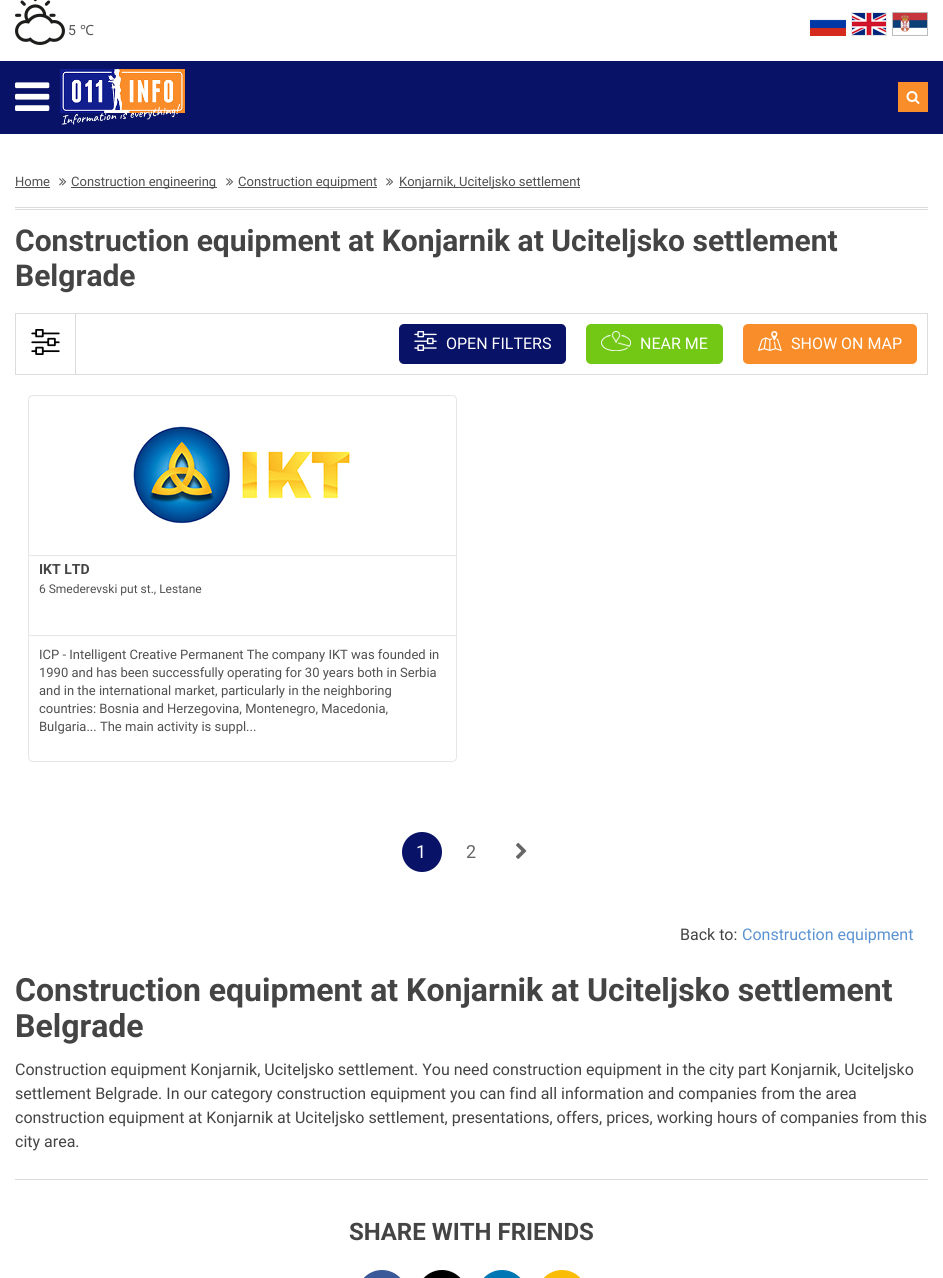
import math
import cairo

surface = cairo.ImageSurface(cairo.FORMAT_RGB24, 943, 1278)
cr = cairo.Context(surface)
options = cairo.FontOptions()
options.set_hint_metrics(cairo.HINT_METRICS_OFF)
options.set_hint_style(cairo.HINT_STYLE_NONE)
cr.set_font_options(options)
cr.set_miter_limit(4)


def rgb(code):
    cr.set_source_rgb(*(v / 255 for v in bytes.fromhex(code[-6:])))


def rrect(x, y, w, h, r):
    cr.new_sub_path()
    for i, (u, v) in enumerate([(x + w - r, y + h - r), (x + r, y + h - r), (x + r, y + r), (x + w - r, y + r)]):
        cr.arc(u, v, r, i * math.pi / 2, (i + 1) * math.pi / 2)
    cr.close_path()


def image(path, x, y, w, h):
    cr.save()
    cr.set_source_surface(cairo.ImageSurface.create_from_png(path), x, y)
    cr.rectangle(x, y, w, h)
    cr.fill()
    cr.restore()


rgb("#ffffff")
cr.paint()
image("img/1.png", 15, 0, 50, 45)
image("img/2.png", 810, 19, 36, 17)
image("img/3.png", 851, 12, 36, 24)
image("img/4.png", 892, 12, 36, 24)
rgb("#081266")
cr.rectangle(0, 61, 943, 73)
cr.fill()
image("img/5.png", 15, 82, 35, 29)
image("img/6.png", 60, 69, 125, 56)
rgb("#f98d29")
cr.rectangle(898, 82, 30, 30)
cr.fill()
image("img/7.png", 906, 91, 14, 13)
rgb("#505050")
cr.rectangle(15, 187, 35, 1)
cr.fill()
image("img/8.png", 59, 178, 8, 8)
cr.rectangle(71, 187, 146, 1)
cr.fill()
image("img/8.png", 226, 178, 8, 8)
cr.rectangle(238, 187, 139, 1)
cr.fill()
image("img/8.png", 386, 178, 8, 8)
for x, y, w, h, color in [
    (399, 187, 181, 1, "#505050"),
    (15, 207, 913, 1, "#dbdbdb"),
    (15, 209, 913, 1, "#dbdbdb"),
]:
    rgb(color)
    cr.rectangle(x, y, w, h)
    cr.fill()
cr.rectangle(15.5, 313.5, 912, 61)
rgb("#dcdcdc")
cr.set_line_width(1)
cr.stroke()
cr.rectangle(75, 314, 1, 60)
cr.fill()
image("img/9.png", 31, 329, 29, 26)
rgb("#081266")
rrect(399, 324, 167, 40, 5)
cr.fill()
image("img/10.png", 414, 331, 23, 20)
rgb("#72c814")
rrect(586, 324, 137, 40, 5)
cr.fill()
image("img/11.png", 601, 331, 30, 20)
rgb("#f98d29")
rrect(743, 324, 174, 40, 5)
cr.fill()
image("img/12.png", 758, 331, 24, 20)
rrect(28.5, 395.5, 428, 366, 4.5)
rgb("#e6e6e6")
cr.stroke()
cr.rectangle(29, 555, 427, 1)
cr.fill()
image("img/13.png", 133, 426, 217, 98)
cr.rectangle(29, 635, 427, 1)
cr.fill()
rgb("#081266")
cr.arc(422, 852, 20, 0, 2 * math.pi)
cr.fill()
image("img/14.png", 516, 842, 11, 17)
rgb("#dbdbdb")
cr.rectangle(15, 1179, 913, 1)
cr.fill()
rgb("#3b5998")
rrect(357, 1270, 50, 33, 25)
cr.fill()
image("img/15.png", 423, 1270, 38, 8)
rgb("#0077b5")
rrect(477, 1270, 50, 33, 25)
cr.fill()
rgb("#fbbc05")
rrect(537, 1270, 50, 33, 25)
cr.fill()
cr.select_font_face("Roboto")
cr.set_font_size(14)
rgb("#575757")
cr.move_to(68, 35)
cr.show_text("5")
cr.select_font_face("Noto Sans")
cr.move_to(80, 35)
cr.show_text("℃")
cr.select_font_face("Roboto")
cr.set_font_size(13)
rgb("#505050")
for x, y, s in [
    (15, 186, "Home"),
    (71, 186, "Construction engineering"),
    (238, 186, "Construction equipment"),
    (399, 186, "Konjarnik, Uciteljsko settlement"),
]:
    cr.move_to(x, y)
    cr.show_text(s)
cr.select_font_face("Roboto", cairo.FONT_SLANT_NORMAL, cairo.FONT_WEIGHT_BOLD)
cr.set_font_size(30)
rgb("#444444")
cr.move_to(15, 251)
cr.show_text("Construction equipment at Konjarnik at Uciteljsko settlement")
cr.move_to(15, 286)
cr.show_text("Belgrade")
cr.select_font_face("Roboto")
cr.set_font_size(16)
rgb("#ffffff")
for x, y, s in [
    (446, 349, "OPEN FILTERS"),
    (640, 349, "NEAR ME"),
    (791, 349, "SHOW ON MAP"),
]:
    cr.move_to(x, y)
    cr.show_text(s)
cr.select_font_face("Roboto", cairo.FONT_SLANT_NORMAL, cairo.FONT_WEIGHT_BOLD)
cr.set_font_size(14)
rgb("#444444")
cr.move_to(39, 574)
cr.show_text("IKT LTD")
cr.select_font_face("Roboto")
cr.set_font_size(12)
rgb("#505050")
cr.move_to(39, 593)
cr.show_text("6 Smederevski put st., Lestane")
cr.set_font_size(13)
for x, y, s in [
    (39, 659, "ICP - Intelligent Creative Permanent The company IKT was founded in"),
    (39, 677, "1990 and has been successfully operating for 30 years both in Serbia"),
    (39, 695, "and in the international market, particularly in the neighboring"),
    (39, 713, "countries: Bosnia and Herzegovina, Montenegro, Macedonia,"),
    (39, 731, "Bulgaria... The main activity is suppl..."),
]:
    cr.move_to(x, y)
    cr.show_text(s)
cr.set_font_size(18)
rgb("#ffffff")
cr.move_to(416, 858)
cr.show_text("1")
rgb("#666666")
cr.move_to(466, 858)
cr.show_text("2")
cr.set_font_size(16)
rgb("#444444")
cr.move_to(680, 940)
cr.show_text("Back to:")
rgb("#5b92d1")
cr.move_to(742, 940)
cr.show_text("Construction equipment")
cr.select_font_face("Roboto", cairo.FONT_SLANT_NORMAL, cairo.FONT_WEIGHT_BOLD)
cr.set_font_size(32)
rgb("#444444")
cr.move_to(15, 1001)
cr.show_text("Construction equipment at Konjarnik at Uciteljsko settlement")
cr.move_to(15, 1037)
cr.show_text("Belgrade")
cr.select_font_face("Roboto")
cr.set_font_size(16)
for x, y, s in [
    (15, 1075, "Construction equipment Konjarnik, Uciteljsko settlement. You need construction equipment in the city part Konjarnik, Uciteljsko"),
    (15, 1099, "settlement Belgrade. In our category construction equipment you can find all information and companies from the area"),
    (15, 1123, "construction equipment at Konjarnik at Uciteljsko settlement, presentations, offers, prices, working hours of companies from this"),
    (15, 1147, "city area."),
]:
    cr.move_to(x, y)
    cr.show_text(s)
cr.select_font_face("Roboto", cairo.FONT_SLANT_NORMAL, cairo.FONT_WEIGHT_BOLD)
cr.set_font_size(24)
cr.move_to(349, 1240)
cr.show_text("SHARE WITH FRIENDS")
surface.write_to_png("page.png")
